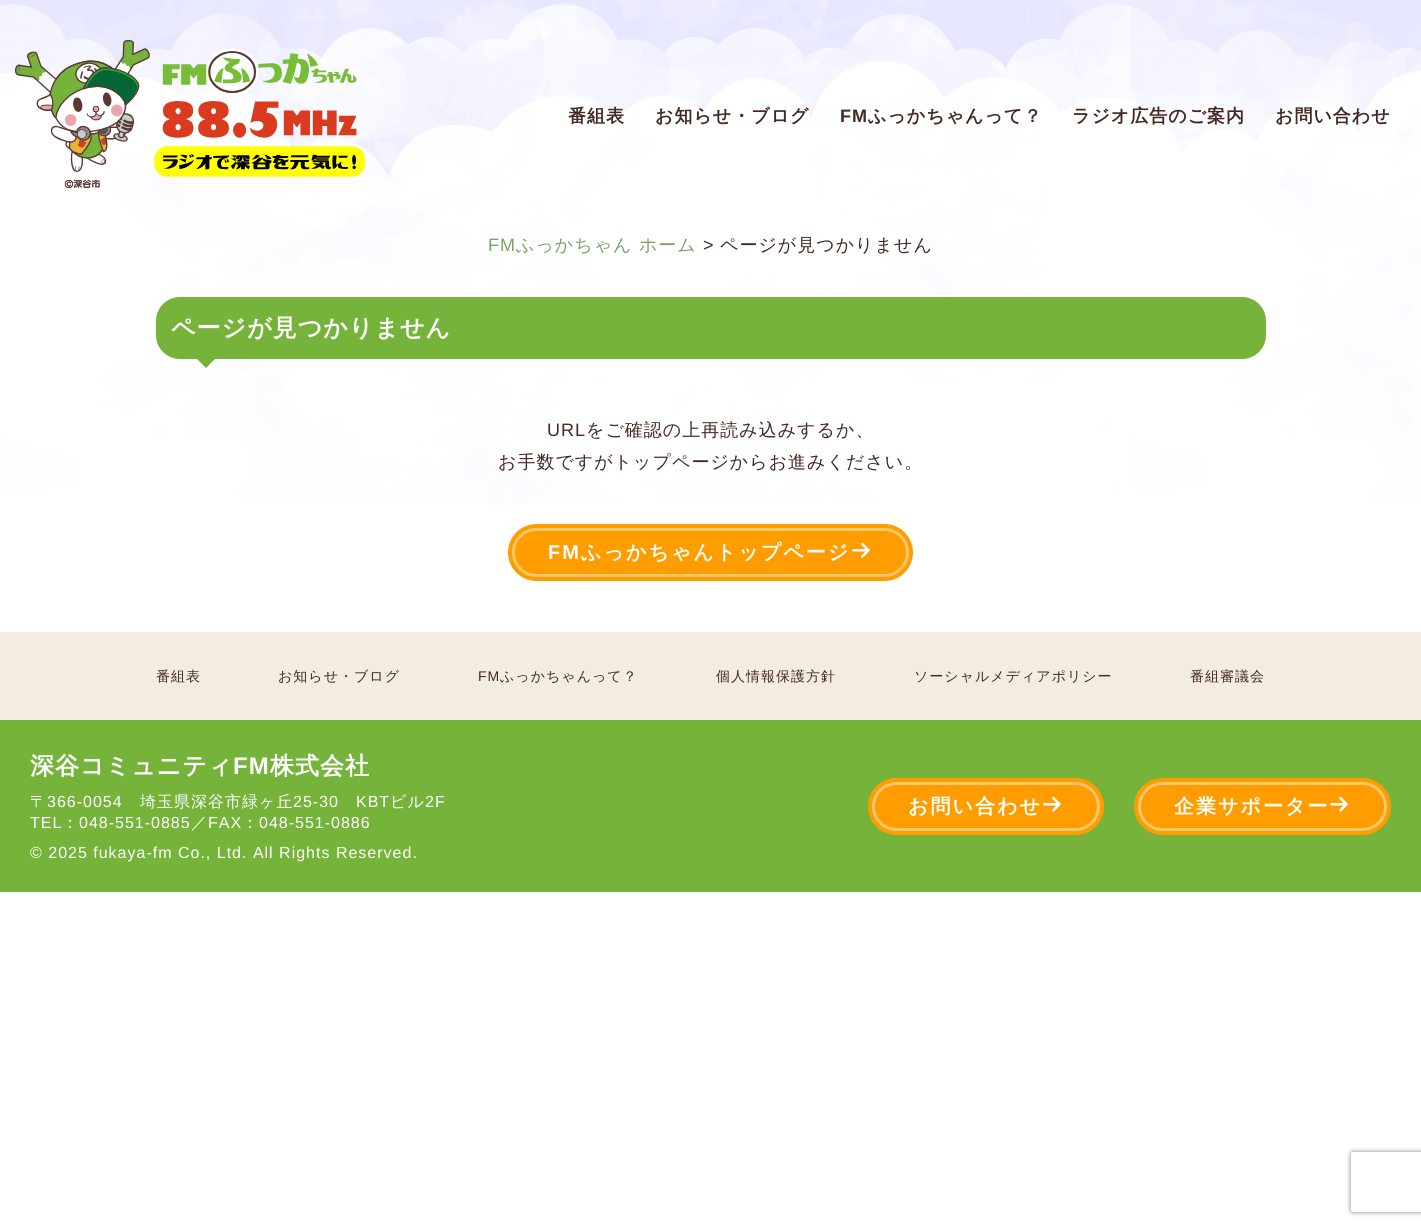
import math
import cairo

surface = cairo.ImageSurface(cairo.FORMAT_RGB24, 1421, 1226)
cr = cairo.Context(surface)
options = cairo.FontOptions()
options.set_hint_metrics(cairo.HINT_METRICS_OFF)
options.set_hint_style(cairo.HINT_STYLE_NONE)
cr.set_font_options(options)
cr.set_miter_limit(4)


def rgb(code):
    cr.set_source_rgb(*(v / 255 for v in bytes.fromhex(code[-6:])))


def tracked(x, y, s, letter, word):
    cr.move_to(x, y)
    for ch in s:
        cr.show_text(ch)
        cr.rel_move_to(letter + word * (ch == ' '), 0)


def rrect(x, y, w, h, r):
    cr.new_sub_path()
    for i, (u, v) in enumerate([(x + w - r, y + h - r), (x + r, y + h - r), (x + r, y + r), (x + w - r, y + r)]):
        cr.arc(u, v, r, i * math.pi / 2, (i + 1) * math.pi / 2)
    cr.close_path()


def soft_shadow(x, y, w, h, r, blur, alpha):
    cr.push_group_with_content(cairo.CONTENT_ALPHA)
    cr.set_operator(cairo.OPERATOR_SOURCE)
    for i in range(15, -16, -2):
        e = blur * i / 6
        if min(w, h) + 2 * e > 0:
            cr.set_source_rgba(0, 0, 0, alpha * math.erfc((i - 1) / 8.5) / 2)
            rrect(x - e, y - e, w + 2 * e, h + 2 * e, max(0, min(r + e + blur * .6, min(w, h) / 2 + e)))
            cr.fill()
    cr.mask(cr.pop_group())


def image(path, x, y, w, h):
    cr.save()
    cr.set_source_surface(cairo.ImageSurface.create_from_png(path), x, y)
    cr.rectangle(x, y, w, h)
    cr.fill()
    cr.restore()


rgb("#ffffff")
cr.paint()
image("img/1.png", 0, 0, 1421, 505)
image("img/2.png", 15, 40, 350, 148)
rgb("#75b33a")
rrect(156, 297, 1110, 62, 24)
cr.fill()
cr.new_path()
cr.move_to(196, 358)
cr.line_to(216, 358)
cr.line_to(206, 368)
cr.close_path()
cr.fill()
rgb("#ff9d00")
rrect(508, 524, 405, 57, 28.5)
cr.fill()
image("img/3.png", 852, 542, 18, 16)
rrect(513.5, 529.5, 394, 46, 23)
rgb("#ffc66a")
cr.set_line_width(3)
cr.stroke()
rgb("#f3ede1")
cr.rectangle(0, 632, 1421, 88)
cr.fill()
rgb("#76b33a")
cr.rectangle(0, 720, 1421, 172)
cr.fill()
rgb("#ff9d00")
rrect(868, 778, 236, 57, 28.5)
cr.fill()
image("img/3.png", 1043, 796, 18, 16)
rrect(873.5, 783.5, 225, 46, 23)
rgb("#ffc66a")
cr.stroke()
rgb("#ff9d00")
rrect(1134, 778, 257, 57, 28.5)
cr.fill()
image("img/3.png", 1330, 796, 18, 16)
rrect(1139.5, 783.5, 246, 46, 23)
rgb("#ffc66a")
cr.stroke()
cr.save()
cr.set_fill_rule(cairo.FILL_RULE_EVEN_ODD)
cr.new_path()
cr.move_to(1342, 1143)
cr.line_to(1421, 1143)
cr.line_to(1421, 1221)
cr.line_to(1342, 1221)
cr.close_path()
cr.move_to(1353, 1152)
cr.line_to(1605, 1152)
cr.curve_to(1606, 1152, 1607, 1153, 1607, 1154)
cr.line_to(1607, 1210)
cr.curve_to(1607, 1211, 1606, 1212, 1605, 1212)
cr.line_to(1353, 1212)
cr.curve_to(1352, 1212, 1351, 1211, 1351, 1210)
cr.line_to(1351, 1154)
cr.curve_to(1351, 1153, 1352, 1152, 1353, 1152)
cr.close_path()
cr.clip()
rgb("#808080")
soft_shadow(1351, 1152, 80, 60, 2, 2.5, 1)
cr.restore()
cr.select_font_face("WenQuanYi Zen Hei", cairo.FONT_SLANT_NORMAL, cairo.FONT_WEIGHT_BOLD)
cr.set_font_size(18)
rgb("#432924")
tracked(568, 122, "番組表", 1, 0)
tracked(655, 122, "お知らせ・ブログ", 1, 0)
cr.select_font_face("Liberation Sans", cairo.FONT_SLANT_NORMAL, cairo.FONT_WEIGHT_BOLD)
tracked(840, 122, "FM", 1, 0)
cr.select_font_face("WenQuanYi Zen Hei", cairo.FONT_SLANT_NORMAL, cairo.FONT_WEIGHT_BOLD)
for x, y, s in [
    (868, 122, "ふっかちゃんって？"),
    (1072, 122, "ラジオ広告のご案内"),
    (1275, 122, "お問い合わせ"),
]:
    tracked(x, y, s, 1, 0)
cr.select_font_face("Liberation Sans")
rgb("#77a464")
tracked(488, 251, "FM", 1, 0)
cr.select_font_face("WenQuanYi Zen Hei Medium")
tracked(516, 251, "ふっかちゃん ホーム", 1, 0)
cr.select_font_face("Liberation Sans")
rgb("#432924")
tracked(703, 251, ">", 1, 0)
cr.select_font_face("WenQuanYi Zen Hei Medium")
tracked(720, 251, "ページが見つかりません", 1, 0)
cr.select_font_face("WenQuanYi Zen Hei", cairo.FONT_SLANT_NORMAL, cairo.FONT_WEIGHT_BOLD)
cr.set_font_size(24)
rgb("#ffffff")
tracked(171, 336, "ページが見つかりません", 1, 0)
cr.select_font_face("Liberation Sans")
cr.set_font_size(18)
rgb("#432924")
tracked(547, 436, "URL", 1, 0)
cr.select_font_face("WenQuanYi Zen Hei Medium")
tracked(586, 436, "をご確認の上再読み込みするか、", 1, 0)
tracked(498, 468, "お手数ですがトップページからお進みください。", 1, 0)
cr.select_font_face("Liberation Sans", cairo.FONT_SLANT_NORMAL, cairo.FONT_WEIGHT_BOLD)
cr.set_font_size(20)
rgb("#ffffff")
tracked(548, 559, "FM", 2, 0)
cr.select_font_face("WenQuanYi Zen Hei", cairo.FONT_SLANT_NORMAL, cairo.FONT_WEIGHT_BOLD)
tracked(581, 559, "ふっかちゃんトップページ", 2, 0)
cr.select_font_face("WenQuanYi Zen Hei Medium")
cr.set_font_size(14)
rgb("#432924")
tracked(156, 681, "番組表", 1, 0)
tracked(278, 681, "お知らせ・ブログ", 1, 0)
cr.select_font_face("Liberation Sans")
tracked(478, 681, "FM", 1, 0)
cr.select_font_face("WenQuanYi Zen Hei Medium")
for x, y, s in [
    (500, 681, "ふっかちゃんって？"),
    (716, 681, "個人情報保護方針"),
    (914, 681, "ソーシャルメディアポリシー"),
    (1190, 681, "番組審議会"),
]:
    tracked(x, y, s, 1, 0)
cr.select_font_face("WenQuanYi Zen Hei", cairo.FONT_SLANT_NORMAL, cairo.FONT_WEIGHT_BOLD)
cr.set_font_size(24)
rgb("#ffffff")
tracked(30, 774, "深谷コミュニティ", 1, 0)
cr.select_font_face("Liberation Sans", cairo.FONT_SLANT_NORMAL, cairo.FONT_WEIGHT_BOLD)
tracked(233, 774, "FM", 1, 0)
cr.select_font_face("WenQuanYi Zen Hei", cairo.FONT_SLANT_NORMAL, cairo.FONT_WEIGHT_BOLD)
tracked(270, 774, "株式会社", 1, 0)
cr.select_font_face("WenQuanYi Zen Hei Medium")
cr.set_font_size(16)
tracked(30, 807, "〒", 1, 0)
cr.select_font_face("Liberation Sans")
tracked(47, 807, "366-0054", 1, 0)
cr.select_font_face("WenQuanYi Zen Hei Medium")
tracked(140, 807, "埼玉県深谷市緑ヶ丘", 1, 0)
cr.select_font_face("Liberation Sans")
tracked(293, 807, "25-30", 1, 0)
tracked(356, 807, "KBT", 1, 0)
cr.select_font_face("WenQuanYi Zen Hei Medium")
tracked(390, 807, "ビル", 1, 0)
cr.select_font_face("Liberation Sans")
tracked(425, 807, "2F", 1, 0)
tracked(30, 828, "TEL", 1, 0)
cr.select_font_face("WenQuanYi Zen Hei Medium")
tracked(62, 828, "：", 1, 0)
cr.select_font_face("Liberation Sans")
tracked(79, 828, "048-551-0885", 1, 0)
cr.select_font_face("WenQuanYi Zen Hei Medium")
tracked(191, 828, "／", 1, 0)
cr.select_font_face("Liberation Sans")
tracked(208, 828, "FAX", 1, 0)
cr.select_font_face("WenQuanYi Zen Hei Medium")
tracked(242, 828, "：", 1, 0)
cr.select_font_face("Liberation Sans")
tracked(259, 828, "048-551-0886", 1, 0)
tracked(30, 858, "© 2025 fukaya-fm Co., Ltd. All Rights Reserved.", 1, 0)
cr.select_font_face("WenQuanYi Zen Hei", cairo.FONT_SLANT_NORMAL, cairo.FONT_WEIGHT_BOLD)
cr.set_font_size(20)
tracked(908, 813, "お問い合わせ", 2, 0)
tracked(1174, 813, "企業サポーター", 2, 0)
surface.write_to_png("page.png")
